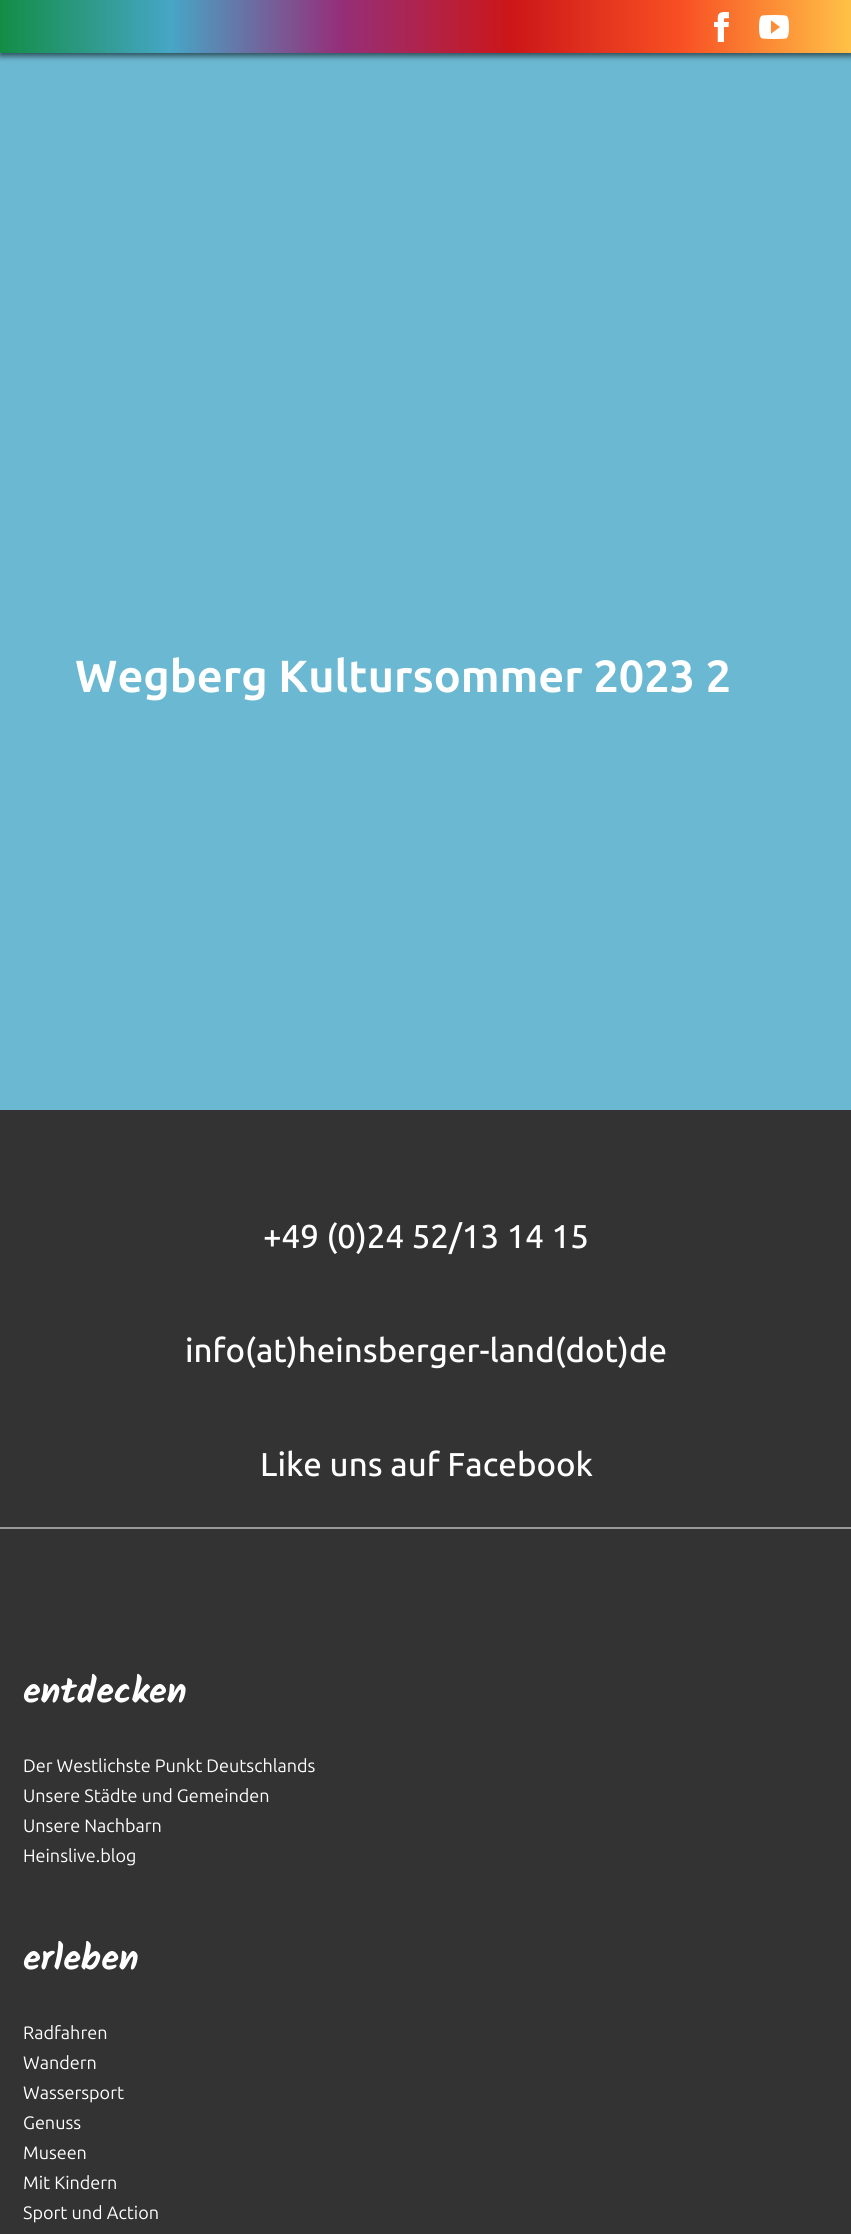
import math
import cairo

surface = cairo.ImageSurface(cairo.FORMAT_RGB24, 851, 2234)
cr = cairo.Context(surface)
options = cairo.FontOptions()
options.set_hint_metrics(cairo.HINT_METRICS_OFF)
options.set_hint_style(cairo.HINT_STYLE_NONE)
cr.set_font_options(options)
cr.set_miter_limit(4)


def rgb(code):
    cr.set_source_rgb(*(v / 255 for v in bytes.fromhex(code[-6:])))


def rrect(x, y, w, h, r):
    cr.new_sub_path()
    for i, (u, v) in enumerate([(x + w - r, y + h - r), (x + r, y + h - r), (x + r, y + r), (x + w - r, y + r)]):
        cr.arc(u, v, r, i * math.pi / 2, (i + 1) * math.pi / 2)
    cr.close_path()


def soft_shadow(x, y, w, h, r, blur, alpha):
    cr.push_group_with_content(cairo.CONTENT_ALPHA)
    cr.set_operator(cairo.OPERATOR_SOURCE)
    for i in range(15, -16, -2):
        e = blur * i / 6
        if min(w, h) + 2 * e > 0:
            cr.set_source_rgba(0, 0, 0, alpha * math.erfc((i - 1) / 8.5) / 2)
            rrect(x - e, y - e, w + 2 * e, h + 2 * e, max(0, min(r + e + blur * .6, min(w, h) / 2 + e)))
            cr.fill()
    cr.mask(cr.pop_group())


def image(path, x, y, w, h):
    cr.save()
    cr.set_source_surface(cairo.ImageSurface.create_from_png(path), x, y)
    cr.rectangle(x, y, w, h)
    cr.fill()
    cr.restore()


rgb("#333333")
cr.paint()
rgb("#6bb8d2")
cr.rectangle(0, 53, 851, 1057)
cr.fill()
rgb("#000000")
soft_shadow(0, 3, 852, 53, 0, 3, 0.6)
gradient = cairo.LinearGradient(0, 26, 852, 26)
gradient.add_color_stop_rgba(0, 0.075, 0.553, 0.275, 1)
gradient.add_color_stop_rgba(0.2, 0.275, 0.651, 0.776, 1)
gradient.add_color_stop_rgba(0.4, 0.584, 0.184, 0.475, 1)
gradient.add_color_stop_rgba(0.6, 0.8, 0.086, 0.098, 1)
gradient.add_color_stop_rgba(0.8, 0.973, 0.314, 0.137, 1)
gradient.add_color_stop_rgba(1, 1, 0.761, 0.278, 1)
cr.set_source(gradient)
cr.rectangle(0, 0, 851, 53)
cr.fill()
image("img/1.png", 714, 12, 15, 30)
image("img/2.png", 759, 15, 30, 24)
rgb("#95989a")
cr.rectangle(0, 1527, 851, 2)
cr.fill()
cr.select_font_face("Ubuntu", cairo.FONT_SLANT_NORMAL, cairo.FONT_WEIGHT_BOLD)
cr.set_font_size(45)
rgb("#ffffff")
cr.move_to(75, 692)
cr.show_text("Wegberg Kultursommer 2023 2")
cr.select_font_face("Ubuntu Medium")
cr.set_font_size(33)
for x, y, s in [
    (263, 1248, "+49 (0)24 52/13 14 15"),
    (185, 1362, "info(at)heinsberger-land(dot)de"),
    (260, 1476, "Like uns auf Facebook"),
]:
    cr.move_to(x, y)
    cr.show_text(s)
cr.select_font_face("Kalam", cairo.FONT_SLANT_NORMAL, cairo.FONT_WEIGHT_BOLD)
cr.set_font_size(36)
cr.move_to(23, 1703)
cr.show_text("entdecken")
cr.select_font_face("Ubuntu")
cr.set_font_size(18)
for x, y, s in [
    (23, 1772, "Der Westlichste Punkt Deutschlands"),
    (23, 1802, "Unsere Städte und Gemeinden"),
    (23, 1832, "Unsere Nachbarn"),
    (23, 1862, "Heinslive.blog"),
]:
    cr.move_to(x, y)
    cr.show_text(s)
cr.select_font_face("Kalam", cairo.FONT_SLANT_NORMAL, cairo.FONT_WEIGHT_BOLD)
cr.set_font_size(36)
cr.move_to(23, 1970)
cr.show_text("erleben")
cr.select_font_face("Ubuntu")
cr.set_font_size(18)
for x, y, s in [
    (23, 2039, "Radfahren"),
    (23, 2069, "Wandern"),
    (23, 2099, "Wassersport"),
    (23, 2129, "Genuss"),
    (23, 2159, "Museen"),
    (23, 2189, "Mit Kindern"),
    (23, 2219, "Sport und Action"),
]:
    cr.move_to(x, y)
    cr.show_text(s)
surface.write_to_png("page.png")
